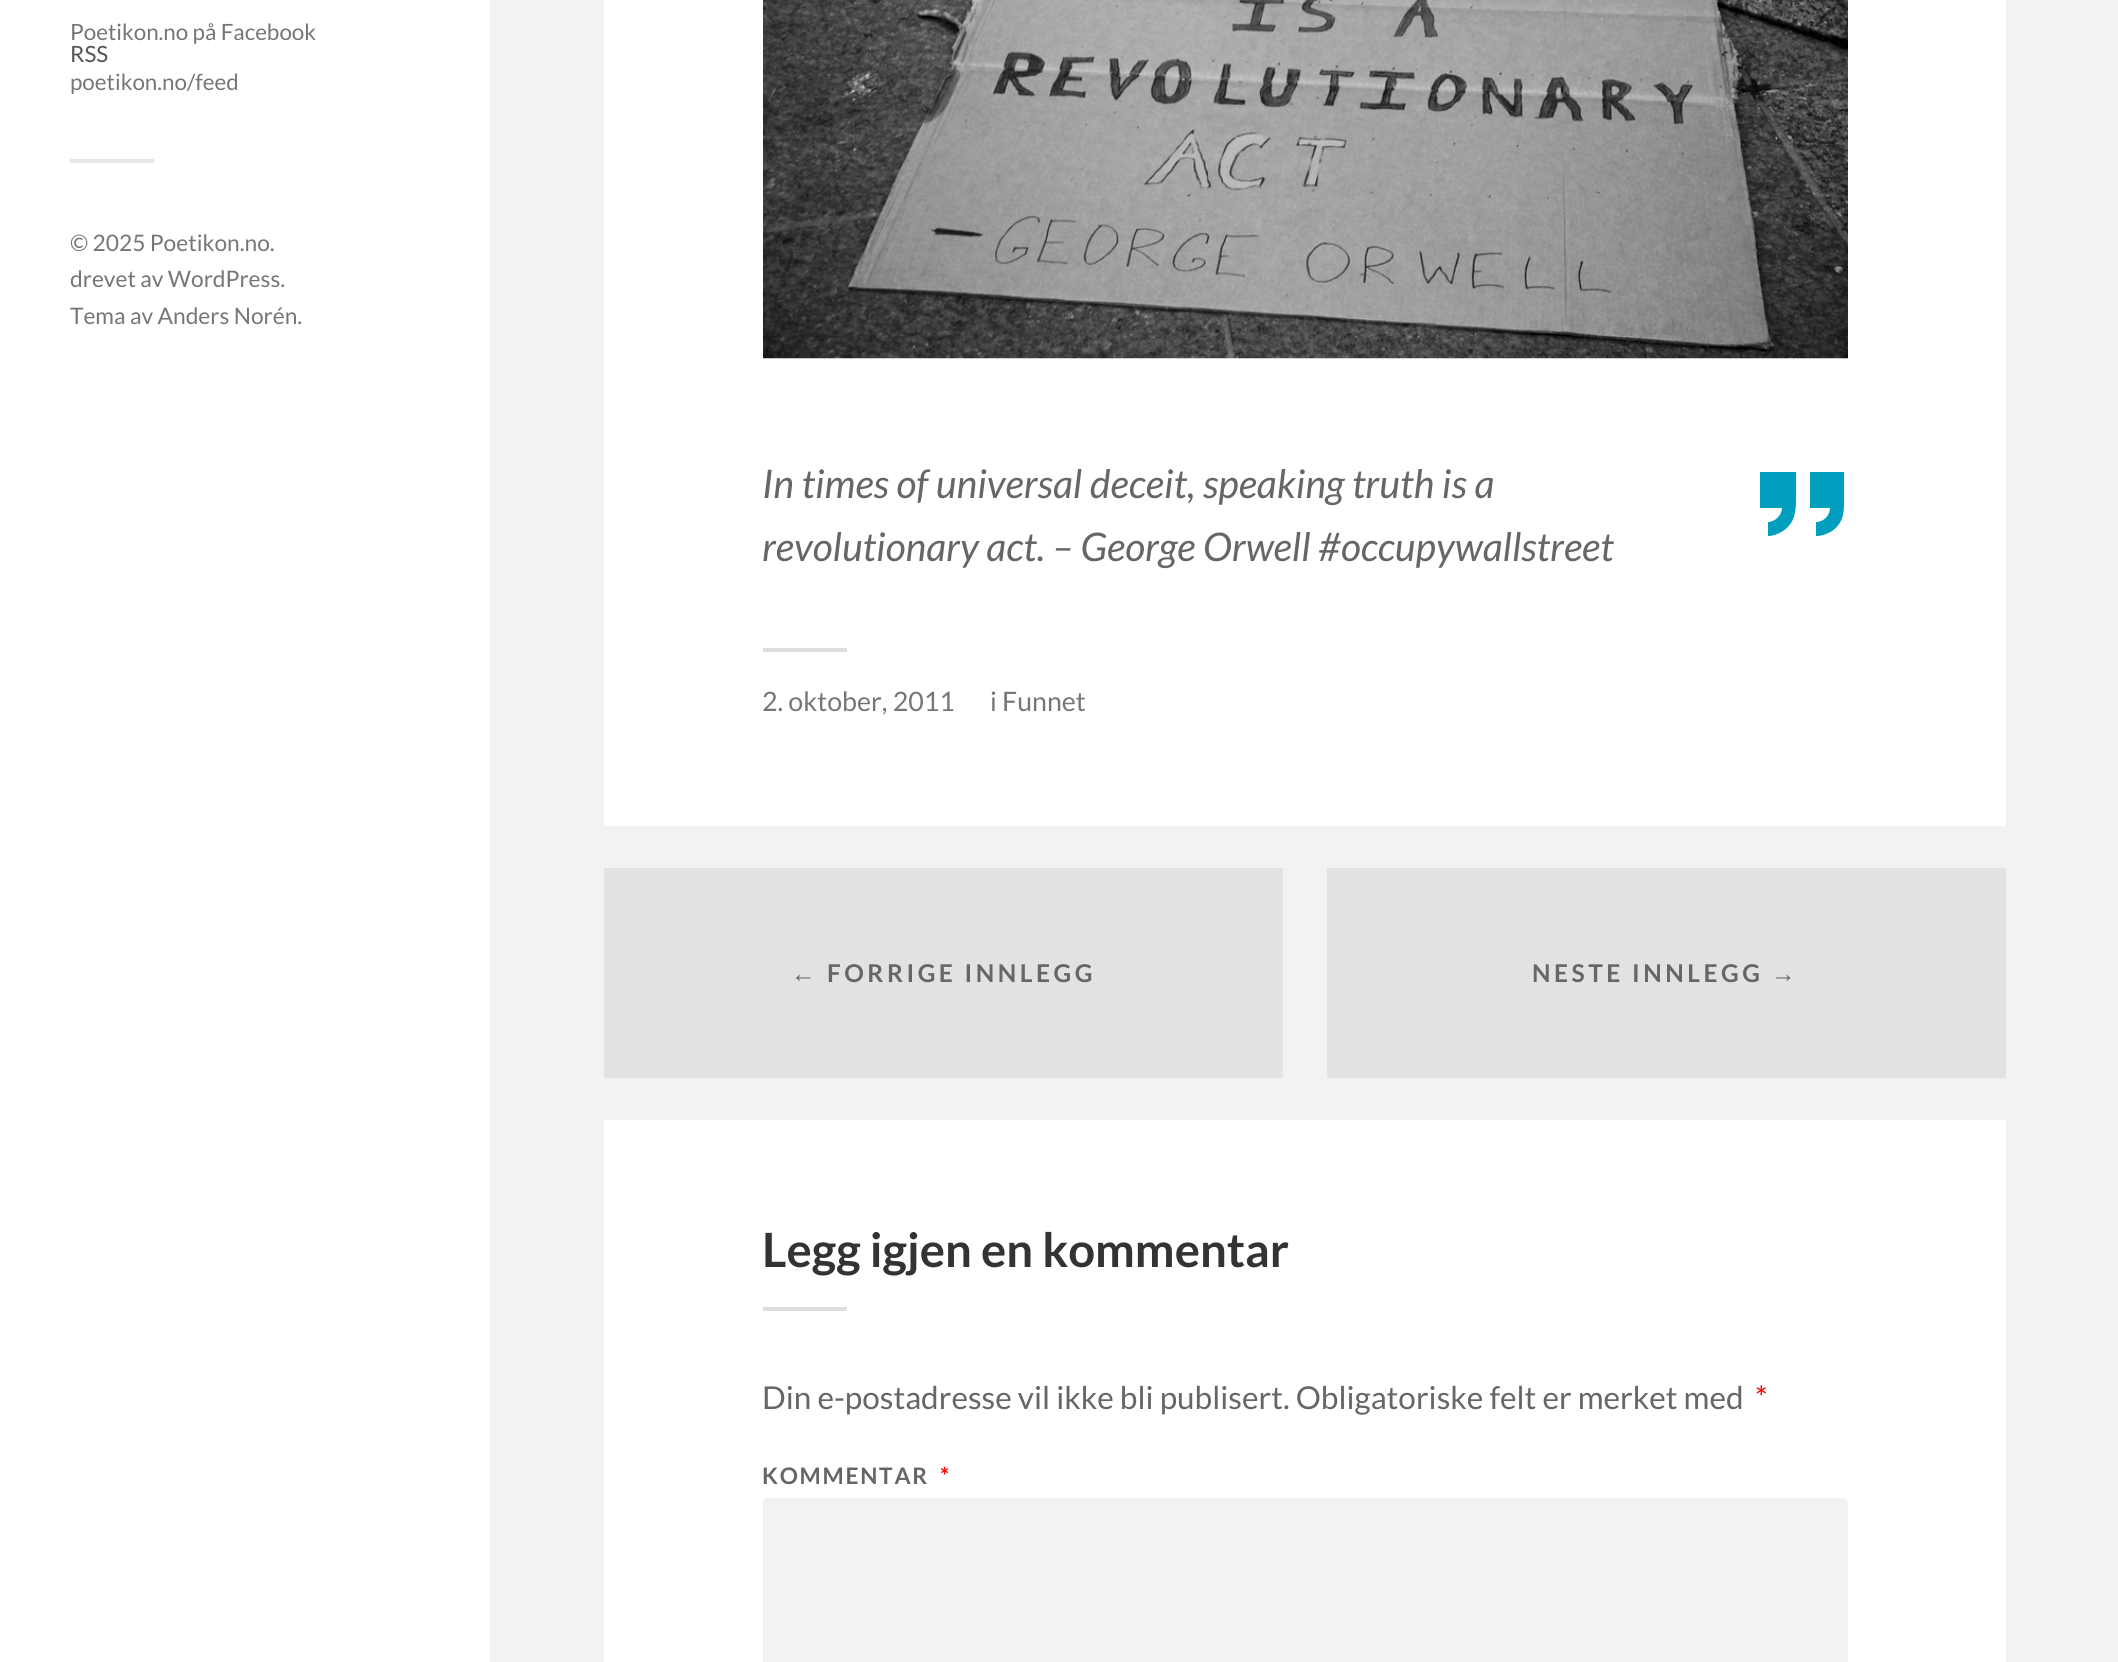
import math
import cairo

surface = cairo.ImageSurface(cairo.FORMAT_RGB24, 2118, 1662)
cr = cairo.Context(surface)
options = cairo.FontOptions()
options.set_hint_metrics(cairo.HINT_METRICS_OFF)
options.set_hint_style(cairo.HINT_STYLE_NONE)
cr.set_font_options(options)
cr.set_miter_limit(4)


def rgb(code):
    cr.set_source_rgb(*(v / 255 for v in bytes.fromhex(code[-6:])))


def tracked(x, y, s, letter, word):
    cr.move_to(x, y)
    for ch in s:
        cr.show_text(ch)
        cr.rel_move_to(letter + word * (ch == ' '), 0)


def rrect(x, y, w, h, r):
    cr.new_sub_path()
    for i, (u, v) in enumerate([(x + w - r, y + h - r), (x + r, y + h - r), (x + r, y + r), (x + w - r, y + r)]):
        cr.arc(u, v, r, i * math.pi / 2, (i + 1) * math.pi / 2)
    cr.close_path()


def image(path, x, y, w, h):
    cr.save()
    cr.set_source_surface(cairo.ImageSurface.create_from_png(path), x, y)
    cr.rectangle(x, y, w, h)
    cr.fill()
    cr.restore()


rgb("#f2f2f2")
cr.paint()
for x, y, w, h, color in [
    (0, 0, 490, 1662, "#ffffff"),
    (70, 159, 84, 4, "#e7e7e7"),
    (604, 0, 1402, 1662, "#ffffff"),
]:
    rgb(color)
    cr.rectangle(x, y, w, h)
    cr.fill()
image("img/1.png", 763, 0, 1085, 359)
rgb("#019ebd")
cr.new_path()
cr.move_to(1760, 508)
cr.line_to(1760, 472)
cr.line_to(1796, 472)
cr.line_to(1796, 496)
cr.curve_to(1796, 510, 1796, 522, 1783, 531)
cr.curve_to(1778, 534, 1773, 536, 1768, 536)
cr.line_to(1768, 522)
cr.curve_to(1775, 522, 1782, 515, 1782, 508)
cr.close_path()
cr.move_to(1810, 472)
cr.line_to(1844, 472)
cr.line_to(1844, 496)
cr.curve_to(1844, 510, 1845, 522, 1832, 531)
cr.curve_to(1827, 534, 1822, 536, 1816, 536)
cr.line_to(1816, 522)
cr.curve_to(1824, 522, 1830, 515, 1830, 508)
cr.line_to(1810, 508)
cr.close_path()
cr.fill()
for x, y, w, h, color in [
    (763, 648, 84, 4, "#dddddd"),
    (604, 826, 1402, 294, "#f2f2f2"),
    (604, 868, 679, 210, "#e2e2e2"),
    (1327, 868, 679, 210, "#e2e2e2"),
    (763, 1307, 84, 4, "#dddddd"),
]:
    rgb(color)
    cr.rectangle(x, y, w, h)
    cr.fill()
rgb("#f2f2f2")
rrect(763, 1498, 1085, 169, 5)
cr.fill()
cr.select_font_face("Lato")
cr.set_font_size(22.4)
rgb("#767676")
cr.move_to(70, 40)
cr.show_text("Poetikon.no på Facebook")
rgb("#555555")
cr.move_to(70, 62)
cr.show_text("RSS")
rgb("#767676")
cr.move_to(70, 90)
cr.show_text("poetikon.no/feed")
cr.set_font_size(22.75)
for x, y, s in [
    (70, 251, "© 2025 Poetikon.no."),
    (70, 287, "drevet av WordPress."),
    (70, 324, "Tema av Anders Norén."),
]:
    cr.move_to(x, y)
    cr.show_text(s)
cr.select_font_face("Lato", cairo.FONT_SLANT_ITALIC)
cr.set_font_size(39.4)
rgb("#666666")
cr.move_to(762, 498)
cr.show_text("In times of universal deceit, speaking truth is a")
cr.move_to(762, 561)
cr.show_text("revolutionary act. – George Orwell #occupywallstreet")
cr.select_font_face("Lato")
cr.set_font_size(26.75)
rgb("#767676")
cr.move_to(762, 711)
cr.show_text("2. oktober, 2011")
cr.move_to(990, 711)
cr.show_text("i Funnet")
cr.select_font_face("Liberation Sans", cairo.FONT_SLANT_NORMAL, cairo.FONT_WEIGHT_BOLD)
cr.set_font_size(24.5)
rgb("#666666")
tracked(791, 982, "←", 3.5, 0)
cr.select_font_face("Lato", cairo.FONT_SLANT_NORMAL, cairo.FONT_WEIGHT_BOLD)
tracked(827, 982, "FORRIGE INNLEGG", 3.5, 0)
tracked(1532, 982, "NESTE INNLEGG", 3.5, 0)
cr.select_font_face("Liberation Sans", cairo.FONT_SLANT_NORMAL, cairo.FONT_WEIGHT_BOLD)
tracked(1771, 982, "→", 3.5, 0)
cr.select_font_face("Lato", cairo.FONT_SLANT_NORMAL, cairo.FONT_WEIGHT_BOLD)
cr.set_font_size(47.25)
rgb("#333333")
cr.move_to(762, 1267)
cr.show_text("Legg igjen en kommentar")
cr.select_font_face("Lato")
cr.set_font_size(31.5)
rgb("#666666")
cr.move_to(762, 1409)
cr.show_text("Din e-postadresse vil ikke bli publisert. Obligatoriske felt er merket med")
rgb("#ff0000")
cr.move_to(1755, 1409)
cr.show_text("*")
cr.select_font_face("Lato", cairo.FONT_SLANT_NORMAL, cairo.FONT_WEIGHT_BOLD)
cr.set_font_size(22.75)
rgb("#666666")
tracked(762, 1484, "KOMMENTAR", 1.75, 0)
rgb("#ff0000")
tracked(940, 1484, "*", 1.75, 0)
surface.write_to_png("page.png")
